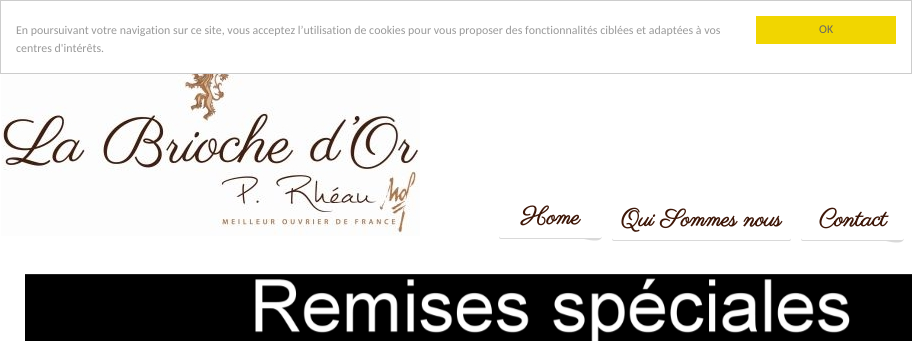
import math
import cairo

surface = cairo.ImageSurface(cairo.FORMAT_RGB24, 912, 341)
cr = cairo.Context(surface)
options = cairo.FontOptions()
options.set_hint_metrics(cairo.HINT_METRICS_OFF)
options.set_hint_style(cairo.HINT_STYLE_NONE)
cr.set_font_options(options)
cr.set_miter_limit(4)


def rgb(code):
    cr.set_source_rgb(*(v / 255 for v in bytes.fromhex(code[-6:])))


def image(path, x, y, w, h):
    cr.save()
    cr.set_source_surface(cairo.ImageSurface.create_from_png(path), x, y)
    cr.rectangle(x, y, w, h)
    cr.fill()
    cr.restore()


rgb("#ffffff")
cr.paint()
cr.rectangle(0.5, 0.5, 911, 73)
rgb("#cccccc")
cr.set_line_width(1)
cr.stroke()
rgb("#f1d600")
cr.rectangle(756, 16, 140, 28)
cr.fill()
image("img/1.png", 1, 74, 419, 162)
rgb("#d9d9d9")
cr.new_path()
cr.move_to(499, 236)
cr.curve_to(499, 237, 499, 239, 501, 239)
cr.line_to(584, 239)
cr.curve_to(585, 239, 602, 244, 602, 236)
cr.curve_to(602, 237, 601, 238, 600, 238)
cr.line_to(501, 238)
cr.curve_to(500, 238, 499, 237, 499, 236)
cr.close_path()
cr.fill()
cr.new_path()
cr.move_to(612, 238)
cr.curve_to(612, 239, 612, 241, 614, 241)
cr.line_to(790, 241)
cr.curve_to(791, 240, 791, 239, 791, 238)
cr.curve_to(791, 239, 790, 240, 789, 240)
cr.line_to(614, 240)
cr.curve_to(613, 240, 612, 239, 612, 238)
cr.close_path()
cr.fill()
cr.new_path()
cr.move_to(801, 238)
cr.curve_to(801, 239, 801, 241, 803, 241)
cr.line_to(886, 241)
cr.curve_to(887, 241, 904, 246, 904, 238)
cr.curve_to(904, 239, 903, 240, 902, 240)
cr.line_to(803, 240)
cr.curve_to(802, 240, 801, 239, 801, 238)
cr.close_path()
cr.fill()
image("img/2.png", 25, 274, 887, 67)
cr.select_font_face("Carlito")
cr.set_font_size(11.9)
rgb("#999999")
cr.move_to(16, 34)
cr.show_text("En poursuivant votre navigation sur ce site, vous acceptez l’utilisation de cookies pour vous proposer des fonctionnalités ciblées et adaptées à vos")
cr.move_to(16, 52)
cr.show_text("centres d'intérêts.")
rgb("#666666")
cr.move_to(819, 33)
cr.show_text("OK")
cr.select_font_face("Parisienne", cairo.FONT_SLANT_NORMAL, cairo.FONT_WEIGHT_BOLD)
cr.set_font_size(24)
rgb("#3e1708")
for x, y, s in [
    (521, 224, "Home"),
    (621, 226, "Qui Sommes nous"),
    (819, 226, "Contact"),
]:
    cr.move_to(x, y)
    cr.show_text(s)
surface.write_to_png("page.png")
